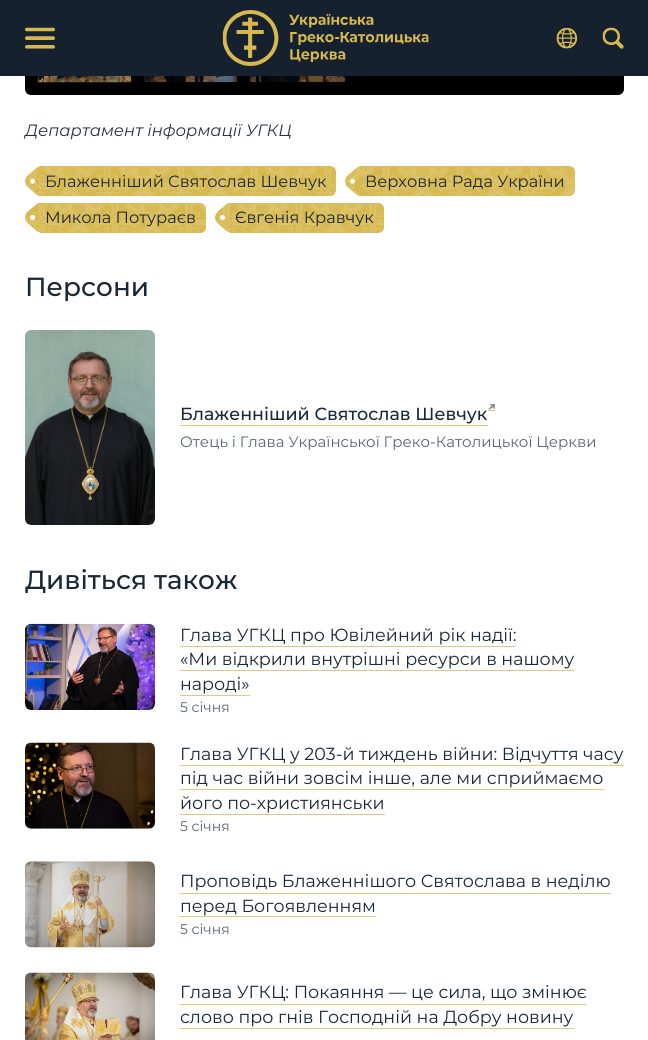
import math
import cairo

surface = cairo.ImageSurface(cairo.FORMAT_RGB24, 648, 1040)
cr = cairo.Context(surface)
options = cairo.FontOptions()
options.set_hint_metrics(cairo.HINT_METRICS_OFF)
options.set_hint_style(cairo.HINT_STYLE_NONE)
cr.set_font_options(options)
cr.set_miter_limit(4)


def rgb(code):
    cr.set_source_rgb(*(v / 255 for v in bytes.fromhex(code[-6:])))


def rrect(x, y, w, h, r):
    cr.new_sub_path()
    for i, (u, v) in enumerate([(x + w - r, y + h - r), (x + r, y + h - r), (x + r, y + r), (x + w - r, y + r)]):
        cr.arc(u, v, r, i * math.pi / 2, (i + 1) * math.pi / 2)
    cr.close_path()


def image(path, x, y, w, h):
    cr.save()
    cr.set_source_surface(cairo.ImageSurface.create_from_png(path), x, y)
    cr.rectangle(x, y, w, h)
    cr.fill()
    cr.restore()


rgb("#ffffff")
cr.paint()
rgb("#000000")
rrect(25, -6, 599, 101, 6)
cr.fill()
rgb("#15212e")
cr.rectangle(0, 0, 648, 76)
cr.fill()
image("img/1.png", 25, 27, 30, 22)
image("img/2.png", 222, 10, 207, 56)
image("img/3.png", 556, 27, 22, 22)
image("img/4.png", 602, 27, 22, 22)
image("img/5.png", 37, 76, 95, 7)
image("img/6.png", 144, 76, 94, 7)
image("img/7.png", 250, 76, 95, 7)
rgb("#d6b84e")
cr.new_path()
cr.move_to(25, 166)
cr.line_to(330, 166)
cr.curve_to(333.5, 166, 336, 168.5, 336, 172)
cr.line_to(336, 190)
cr.curve_to(336, 193.5, 333.5, 196, 330, 196)
cr.line_to(25, 196)
cr.close_path()
cr.fill()
image("img/8.png", 25, 166, 311, 30)
image("img/9.png", 25, 166, 15, 30)
cr.new_path()
cr.move_to(345, 166)
cr.line_to(569, 166)
cr.curve_to(572.5, 166, 575, 168.5, 575, 172)
cr.line_to(575, 190)
cr.curve_to(575, 193.5, 572.5, 196, 569, 196)
cr.line_to(345, 196)
cr.close_path()
cr.fill()
image("img/10.png", 345, 166, 230, 30)
image("img/11.png", 345, 166, 15, 30)
cr.new_path()
cr.move_to(25, 203)
cr.line_to(200, 203)
cr.curve_to(203.5, 203, 206, 205.5, 206, 209)
cr.line_to(206, 227)
cr.curve_to(206, 230.5, 203.5, 233, 200, 233)
cr.line_to(25, 233)
cr.close_path()
cr.fill()
image("img/12.png", 25, 203, 181, 30)
image("img/13.png", 25, 203, 15, 30)
cr.new_path()
cr.move_to(215, 203)
cr.line_to(378, 203)
cr.curve_to(381.5, 203, 384, 205.5, 384, 209)
cr.line_to(384, 227)
cr.curve_to(384, 230.5, 381.5, 233, 378, 233)
cr.line_to(215, 233)
cr.close_path()
cr.fill()
image("img/14.png", 215, 203, 169, 30)
image("img/15.png", 215, 203, 15, 30)
image("img/16.png", 25, 330, 130, 195)
rgb("#e0ca7a")
cr.rectangle(180, 425, 308, 1)
cr.fill()
cr.rectangle(488, 410, 7, 1)
cr.fill()
image("img/17.png", 488, 404, 7, 6)
image("img/18.png", 25, 623, 130, 87)
for x, y, w, h, color in [
    (180, 646, 336, 1, "#e0ca7a"),
    (180, 670, 394, 1, "#e0ca7a"),
    (180, 695, 70, 1, "#e0ca7a"),
]:
    rgb(color)
    cr.rectangle(x, y, w, h)
    cr.fill()
image("img/19.png", 25, 742, 130, 87)
for x, y, w, h, color in [
    (180, 765, 444, 1, "#e0ca7a"),
    (180, 789, 424, 1, "#e0ca7a"),
    (180, 814, 205, 1, "#e0ca7a"),
]:
    rgb(color)
    cr.rectangle(x, y, w, h)
    cr.fill()
image("img/20.png", 25, 861, 130, 87)
cr.rectangle(180, 893, 431, 1)
cr.fill()
cr.rectangle(180, 916, 196, 1)
cr.fill()
image("img/21.png", 25, 972, 130, 68)
cr.rectangle(180, 1004, 406, 1)
cr.fill()
cr.rectangle(180, 1028, 394, 1)
cr.fill()
cr.select_font_face("Montserrat", cairo.FONT_SLANT_ITALIC)
cr.set_font_size(16.4)
rgb("#263441")
cr.move_to(25, 136)
cr.show_text("Департамент інформації УГКЦ")
cr.select_font_face("Montserrat")
cr.set_font_size(16.25)
rgb("#192736")
for x, y, s in [
    (45, 187, "Блаженніший Святослав Шевчук"),
    (365, 187, "Верховна Рада України"),
    (45, 223, "Микола Потураєв"),
    (235, 223, "Євгенія Кравчук"),
]:
    cr.move_to(x, y)
    cr.show_text(s)
cr.select_font_face("Montserrat Medium")
cr.set_font_size(26.25)
cr.move_to(25, 296)
cr.show_text("Персони")
cr.set_font_size(17.5)
cr.move_to(180, 420)
cr.show_text("Блаженніший Святослав Шевчук")
cr.select_font_face("Montserrat")
cr.set_font_size(15)
rgb("#59646e")
cr.move_to(180, 447)
cr.show_text("Отець і Глава Української Греко-Католицької Церкви")
cr.select_font_face("Montserrat Medium")
cr.set_font_size(26.25)
rgb("#192736")
cr.move_to(25, 589)
cr.show_text("Дивіться також")
cr.select_font_face("Montserrat")
cr.set_font_size(17.5)
for x, y, s in [
    (180, 641, "Глава УГКЦ про Ювілейний рік надії:"),
    (180, 665, "«Ми відкрили внутрішні ресурси в нашому"),
    (180, 690, "народі»"),
]:
    cr.move_to(x, y)
    cr.show_text(s)
cr.set_font_size(14)
rgb("#59646e")
cr.move_to(180, 712)
cr.show_text("5 січня")
cr.set_font_size(17.5)
rgb("#192736")
for x, y, s in [
    (180, 760, "Глава УГКЦ у 203-й тиждень війни: Відчуття часу"),
    (180, 784, "під час війни зовсім інше, але ми сприймаємо"),
    (180, 809, "його по-християнськи"),
]:
    cr.move_to(x, y)
    cr.show_text(s)
cr.set_font_size(14)
rgb("#59646e")
cr.move_to(180, 831)
cr.show_text("5 січня")
cr.set_font_size(17.5)
rgb("#192736")
cr.move_to(180, 887)
cr.show_text("Проповідь Блаженнішого Святослава в неділю")
cr.move_to(180, 912)
cr.show_text("перед Богоявленням")
cr.set_font_size(14)
rgb("#59646e")
cr.move_to(180, 934)
cr.show_text("5 січня")
cr.set_font_size(17.5)
rgb("#192736")
cr.move_to(180, 998)
cr.show_text("Глава УГКЦ: Покаяння — це сила, що змінює")
cr.move_to(180, 1023)
cr.show_text("слово про гнів Господній на Добру новину")
surface.write_to_png("page.png")
